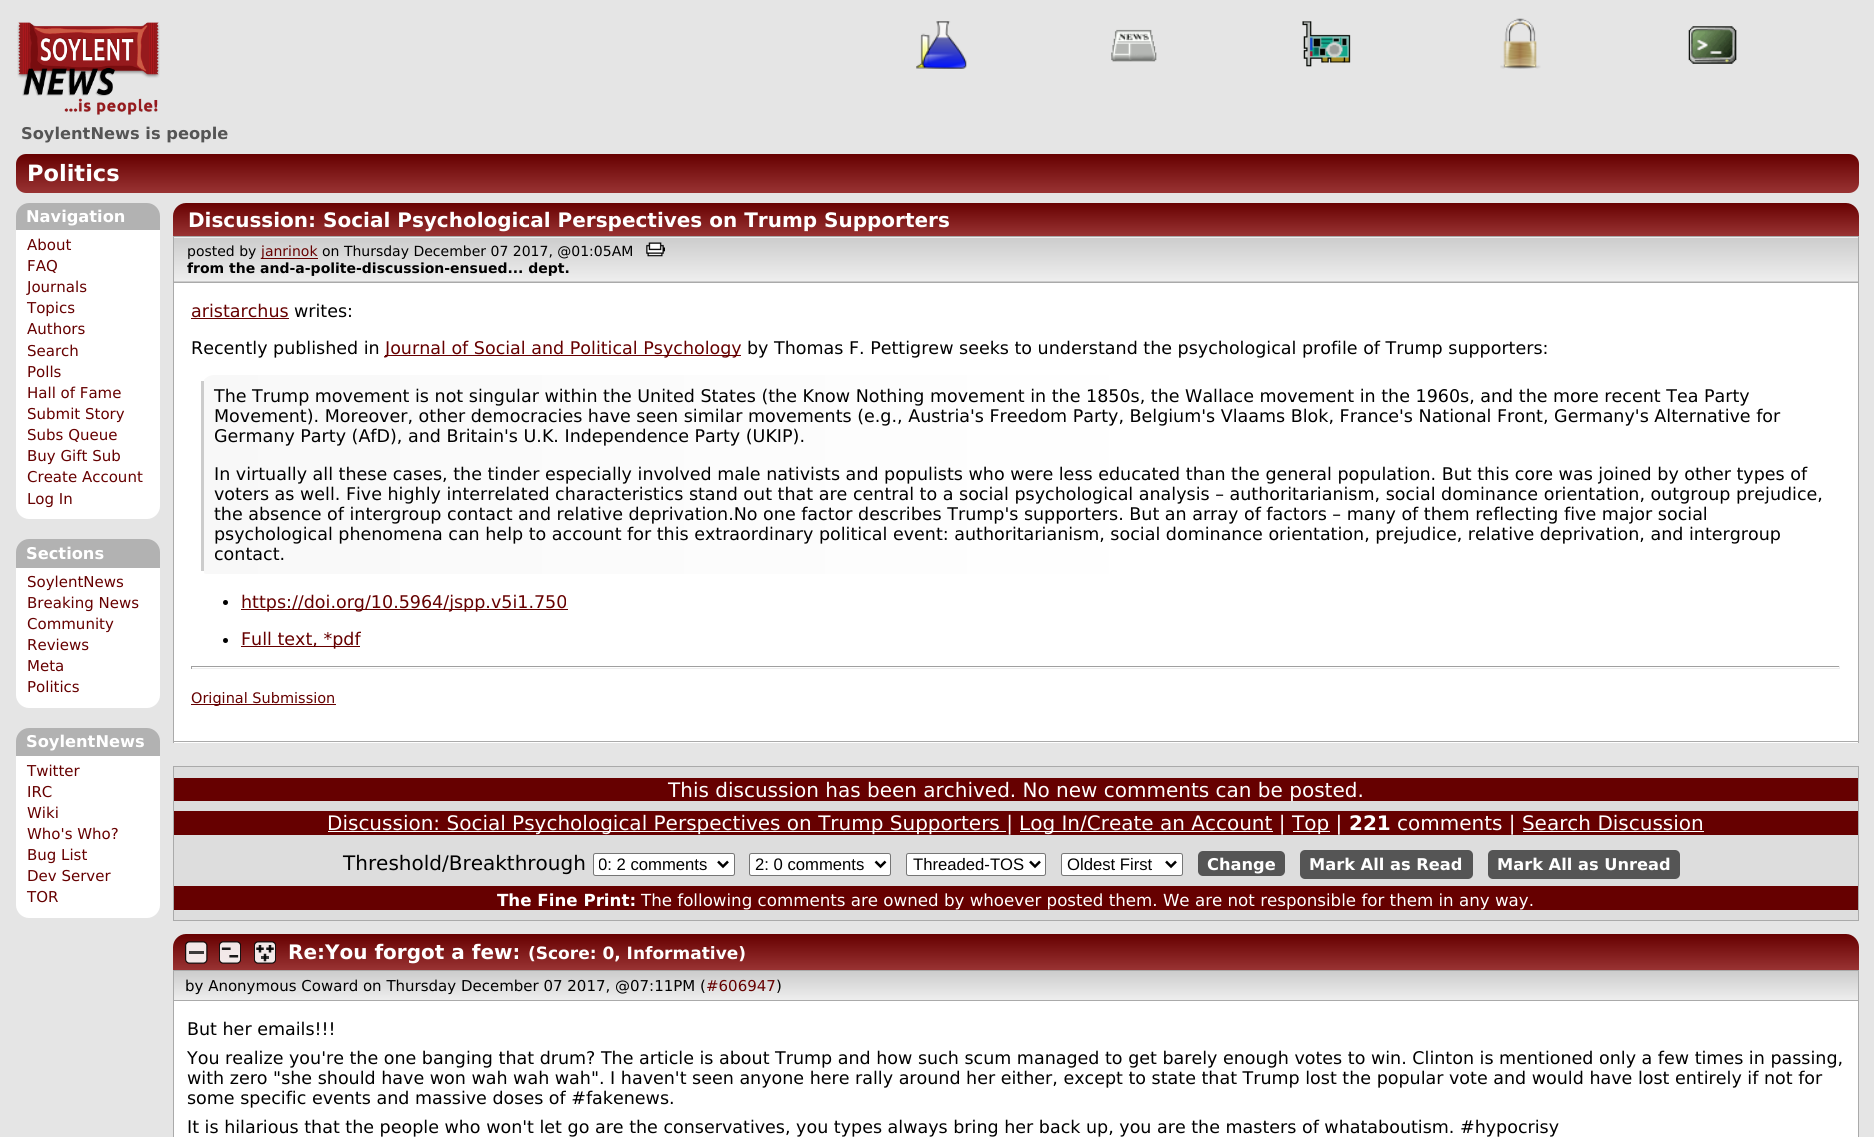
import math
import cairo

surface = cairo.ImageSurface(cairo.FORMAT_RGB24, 1874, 1137)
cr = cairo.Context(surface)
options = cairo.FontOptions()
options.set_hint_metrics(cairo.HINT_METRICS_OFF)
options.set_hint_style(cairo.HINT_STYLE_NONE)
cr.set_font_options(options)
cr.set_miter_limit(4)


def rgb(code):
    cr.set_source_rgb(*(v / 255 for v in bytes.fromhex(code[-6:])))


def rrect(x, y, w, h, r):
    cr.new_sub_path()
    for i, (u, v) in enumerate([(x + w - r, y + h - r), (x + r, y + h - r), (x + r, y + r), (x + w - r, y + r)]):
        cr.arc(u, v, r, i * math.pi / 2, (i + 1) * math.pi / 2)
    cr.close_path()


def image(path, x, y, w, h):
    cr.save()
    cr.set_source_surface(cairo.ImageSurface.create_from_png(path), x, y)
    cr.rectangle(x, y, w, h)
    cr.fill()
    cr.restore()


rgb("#e5e5e5")
cr.paint()
image("img/1.png", 17, 22, 143, 93)
image("img/2.png", 916, 21, 51, 48)
image("img/3.png", 1111, 29, 46, 33)
image("img/4.png", 1302, 21, 49, 46)
image("img/5.png", 1500, 18, 41, 51)
image("img/6.png", 1688, 26, 49, 38)
gradient = cairo.LinearGradient(938, 154, 938, 193)
gradient.add_color_stop_rgba(0, 0.4, 0, 0, 1)
gradient.add_color_stop_rgba(1, 0.6, 0.2, 0.2, 1)
cr.set_source(gradient)
rrect(16, 154, 1843, 39, 10)
cr.fill()
rgb("#b2b2b2")
cr.new_path()
cr.move_to(29, 203)
cr.line_to(147, 203)
cr.curve_to(154, 203, 160, 209, 160, 216)
cr.line_to(160, 230)
cr.line_to(16, 230)
cr.line_to(16, 216)
cr.curve_to(16, 209, 22, 203, 29, 203)
cr.close_path()
cr.fill()
rgb("#ffffff")
cr.new_path()
cr.move_to(16, 230)
cr.line_to(160, 230)
cr.line_to(160, 506)
cr.curve_to(160, 513, 154, 519, 147, 519)
cr.line_to(29, 519)
cr.curve_to(22, 519, 16, 513, 16, 506)
cr.close_path()
cr.fill()
rgb("#b2b2b2")
cr.new_path()
cr.move_to(29, 539)
cr.line_to(147, 539)
cr.curve_to(154, 539, 160, 545, 160, 552)
cr.line_to(160, 568)
cr.line_to(16, 568)
cr.line_to(16, 552)
cr.curve_to(16, 545, 22, 539, 29, 539)
cr.close_path()
cr.fill()
rgb("#ffffff")
cr.new_path()
cr.move_to(16, 568)
cr.line_to(160, 568)
cr.line_to(160, 695)
cr.curve_to(160, 702, 154, 708, 147, 708)
cr.line_to(29, 708)
cr.curve_to(22, 708, 16, 702, 16, 695)
cr.close_path()
cr.fill()
rgb("#b2b2b2")
cr.new_path()
cr.move_to(29, 728)
cr.line_to(147, 728)
cr.curve_to(154, 728, 160, 734, 160, 741)
cr.line_to(160, 756)
cr.line_to(16, 756)
cr.line_to(16, 741)
cr.curve_to(16, 734, 22, 728, 29, 728)
cr.close_path()
cr.fill()
rgb("#ffffff")
cr.new_path()
cr.move_to(16, 756)
cr.line_to(160, 756)
cr.line_to(160, 905)
cr.curve_to(160, 912, 154, 918, 147, 918)
cr.line_to(29, 918)
cr.curve_to(22, 918, 16, 912, 16, 905)
cr.close_path()
cr.fill()
gradient = cairo.LinearGradient(1016, 202, 1016, 236)
gradient.add_color_stop_rgba(0, 0.4, 0, 0, 1)
gradient.add_color_stop_rgba(1, 0.6, 0.2, 0.2, 1)
cr.set_source(gradient)
cr.new_path()
cr.move_to(186, 203)
cr.line_to(1846, 203)
cr.curve_to(1853, 203, 1859, 209, 1859, 216)
cr.line_to(1859, 236)
cr.line_to(173, 236)
cr.line_to(173, 216)
cr.curve_to(173, 209, 179, 203, 186, 203)
cr.close_path()
cr.fill()
gradient = cairo.LinearGradient(1016, 194, 1016, 238)
gradient.add_color_stop_rgba(0, 0.8, 0.8, 0.8, 1)
gradient.add_color_stop_rgba(1, 0.933, 0.933, 0.933, 1)
cr.set_source(gradient)
cr.rectangle(173, 237, 1686, 1)
cr.fill()
gradient = cairo.LinearGradient(1016, 237, 1016, 281)
gradient.add_color_stop_rgba(0, 0.8, 0.8, 0.8, 1)
gradient.add_color_stop_rgba(1, 0.933, 0.933, 0.933, 1)
cr.set_source(gradient)
cr.rectangle(174, 238, 1684, 43)
cr.fill()
gradient = cairo.LinearGradient(1016, 281, 1016, 325)
gradient.add_color_stop_rgba(0, 0.8, 0.8, 0.8, 1)
gradient.add_color_stop_rgba(1, 0.933, 0.933, 0.933, 1)
cr.set_source(gradient)
cr.rectangle(173, 281, 1686, 1)
cr.fill()
cr.rectangle(173.5, 236.5, 1685, 46)
rgb("#aaaaaa")
cr.set_line_width(1)
cr.stroke()
rgb("#660000")
cr.rectangle(261, 258, 57, 1)
cr.fill()
image("img/7.png", 646, 242, 19, 15)
for x, y, w, h, color in [
    (174, 283, 1684, 460, "#ffffff"),
    (1858, 283, 1, 460, "#aaaaaa"),
    (173, 741, 1686, 1, "#aaaaaa"),
    (173, 283, 1, 460, "#aaaaaa"),
    (191, 318, 98, 1, "#660000"),
    (385, 355, 356, 1, "#660000"),
]:
    rgb(color)
    cr.rectangle(x, y, w, h)
    cr.fill()
cr.save()
cr.new_path()
cr.move_to(214, 375)
cr.line_to(1830, 375)
cr.line_to(1830, 574)
cr.line_to(207, 574)
cr.curve_to(203.5, 574, 201, 571.5, 201, 568)
cr.line_to(201, 388)
cr.curve_to(201, 381, 207, 375, 214, 375)
cr.close_path()
cr.clip()
gradient = cairo.LinearGradient(204, 474, 1830, 474)
gradient.add_color_stop_rgba(0, 0.973, 0.973, 0.973, 1)
gradient.add_color_stop_rgba(0.6, 1, 1, 1, 1)
cr.set_source(gradient)
cr.rectangle(204, 375, 1626, 199)
cr.fill()
cr.restore()
rgb("#cccccc")
cr.rectangle(201, 381, 3, 190)
cr.fill()
rgb("#000000")
cr.arc(225.5, 602.5, 2.5, 0, 2 * math.pi)
cr.fill()
rgb("#660000")
cr.rectangle(241, 609, 327, 1)
cr.fill()
rgb("#000000")
cr.arc(225.5, 640.5, 2.5, 0, 2 * math.pi)
cr.fill()
for x, y, w, h, color in [
    (241, 646, 119, 1, "#660000"),
    (191, 666, 1649, 1, "#9f9f9f"),
    (1839, 666, 1, 3, "#eeeeee"),
    (191, 668, 1649, 1, "#eeeeee"),
    (191, 666, 1, 3, "#9f9f9f"),
    (191, 704, 145, 1, "#660000"),
]:
    rgb(color)
    cr.rectangle(x, y, w, h)
    cr.fill()
rgb("#dddddd")
cr.rectangle(173.5, 766.5, 1685, 154)
cr.fill_preserve()
rgb("#aaaaaa")
cr.stroke()
for x, y, w, h, color in [
    (174, 778, 1684, 23, "#660000"),
    (174, 811, 1684, 24, "#660000"),
    (328, 831, 678, 1, "#ffffff"),
    (1020, 831, 253, 1, "#ffffff"),
    (1293, 831, 37, 1, "#ffffff"),
    (1523, 831, 181, 1, "#ffffff"),
]:
    rgb(color)
    cr.rectangle(x, y, w, h)
    cr.fill()
rrect(593.5, 853.5, 141, 22, 2)
cr.fill_preserve()
rgb("#767676")
cr.stroke()
cr.new_path()
cr.move_to(718, 861.5)
cr.line_to(723, 866.5)
cr.line_to(728, 861.5)
rgb("#000000")
cr.set_line_width(2.5)
cr.stroke()
rgb("#ffffff")
rrect(749.5, 853.5, 141, 22, 2)
cr.fill_preserve()
rgb("#767676")
cr.set_line_width(1)
cr.stroke()
cr.new_path()
cr.move_to(875.5, 861.5)
cr.line_to(880.5, 866.5)
cr.line_to(885.5, 861.5)
rgb("#000000")
cr.set_line_width(2.5)
cr.stroke()
rgb("#ffffff")
rrect(906.5, 853.5, 139, 22, 2)
cr.fill_preserve()
rgb("#767676")
cr.set_line_width(1)
cr.stroke()
cr.new_path()
cr.move_to(1030, 861.5)
cr.line_to(1035, 866.5)
cr.line_to(1040, 861.5)
rgb("#000000")
cr.set_line_width(2.5)
cr.stroke()
rgb("#ffffff")
rrect(1061.5, 853.5, 121, 22, 2)
cr.fill_preserve()
rgb("#767676")
cr.set_line_width(1)
cr.stroke()
cr.new_path()
cr.move_to(1166, 861.5)
cr.line_to(1171, 866.5)
cr.line_to(1176, 861.5)
rgb("#000000")
cr.set_line_width(2.5)
cr.stroke()
rgb("#555555")
rrect(1198, 851, 87, 25, 5)
cr.fill()
rrect(1300, 850, 173, 29, 5)
cr.fill()
rrect(1488, 850, 192, 29, 5)
cr.fill()
rgb("#660000")
cr.rectangle(174, 886, 1684, 24)
cr.fill()
gradient = cairo.LinearGradient(1016, 934, 1016, 970)
gradient.add_color_stop_rgba(0, 0.4, 0, 0, 1)
gradient.add_color_stop_rgba(1, 0.6, 0.2, 0.2, 1)
cr.set_source(gradient)
cr.new_path()
cr.move_to(186, 934)
cr.line_to(1846, 934)
cr.curve_to(1853, 934, 1859, 940, 1859, 947)
cr.line_to(1859, 970)
cr.line_to(173, 970)
cr.line_to(173, 947)
cr.curve_to(173, 940, 179, 934, 186, 934)
cr.close_path()
cr.fill()
image("img/8.png", 185, 941, 23, 23)
image("img/9.png", 219, 941, 22, 23)
image("img/10.png", 254, 941, 22, 23)
gradient = cairo.LinearGradient(1016, 971, 1016, 1000)
gradient.add_color_stop_rgba(0, 0.8, 0.8, 0.8, 1)
gradient.add_color_stop_rgba(1, 0.933, 0.933, 0.933, 1)
cr.set_source(gradient)
cr.rectangle(174, 971, 1684, 29)
cr.fill()
cr.rectangle(173.5, 970.5, 1685, 30)
rgb("#aaaaaa")
cr.set_line_width(1)
cr.stroke()
for x, y, w, h, color in [
    (174, 1001, 1684, 136, "#ffffff"),
    (1858, 1001, 1, 136, "#aaaaaa"),
    (173, 1001, 1, 136, "#aaaaaa"),
]:
    rgb(color)
    cr.rectangle(x, y, w, h)
    cr.fill()
cr.select_font_face("DejaVu Sans", cairo.FONT_SLANT_NORMAL, cairo.FONT_WEIGHT_BOLD)
cr.set_font_size(16.25)
rgb("#555555")
cr.move_to(21, 139)
cr.show_text("SoylentNews is people")
cr.set_font_size(22.5)
rgb("#ffffff")
cr.move_to(27, 181)
cr.show_text("Politics")
cr.set_font_size(16.25)
cr.move_to(26, 222)
cr.show_text("Navigation")
cr.select_font_face("DejaVu Sans")
cr.set_font_size(15)
rgb("#660000")
for x, y, s in [
    (27, 250, "About"),
    (27, 271, "FAQ"),
    (27, 292, "Journals"),
    (27, 313, "Topics"),
    (27, 334, "Authors"),
    (27, 356, "Search"),
    (27, 377, "Polls"),
    (27, 398, "Hall of Fame"),
    (27, 419, "Submit Story"),
    (27, 440, "Subs Queue"),
    (27, 461, "Buy Gift Sub"),
    (27, 482, "Create Account"),
    (27, 504, "Log In"),
]:
    cr.move_to(x, y)
    cr.show_text(s)
cr.select_font_face("DejaVu Sans", cairo.FONT_SLANT_NORMAL, cairo.FONT_WEIGHT_BOLD)
cr.set_font_size(16.25)
rgb("#ffffff")
cr.move_to(26, 559)
cr.show_text("Sections")
cr.select_font_face("DejaVu Sans")
cr.set_font_size(15)
rgb("#660000")
for x, y, s in [
    (27, 587, "SoylentNews"),
    (27, 608, "Breaking News"),
    (27, 629, "Community"),
    (27, 650, "Reviews"),
    (27, 671, "Meta"),
    (27, 692, "Politics"),
]:
    cr.move_to(x, y)
    cr.show_text(s)
cr.select_font_face("DejaVu Sans", cairo.FONT_SLANT_NORMAL, cairo.FONT_WEIGHT_BOLD)
cr.set_font_size(16.25)
rgb("#ffffff")
cr.move_to(26, 747)
cr.show_text("SoylentNews")
cr.select_font_face("DejaVu Sans")
cr.set_font_size(15)
rgb("#660000")
for x, y, s in [
    (27, 776, "Twitter"),
    (27, 797, "IRC"),
    (27, 818, "Wiki"),
    (27, 839, "Who's Who?"),
    (27, 860, "Bug List"),
    (27, 881, "Dev Server"),
    (27, 902, "TOR"),
]:
    cr.move_to(x, y)
    cr.show_text(s)
cr.select_font_face("DejaVu Sans", cairo.FONT_SLANT_NORMAL, cairo.FONT_WEIGHT_BOLD)
cr.set_font_size(20)
rgb("#ffffff")
cr.move_to(188, 227)
cr.show_text("Discussion: Social Psychological Perspectives on Trump Supporters")
cr.select_font_face("DejaVu Sans")
cr.set_font_size(14)
rgb("#000000")
cr.move_to(187, 256)
cr.show_text("posted by")
rgb("#660000")
cr.move_to(261, 256)
cr.show_text("janrinok")
rgb("#000000")
cr.move_to(322, 256)
cr.show_text("on Thursday December 07 2017, @01:05AM")
cr.select_font_face("DejaVu Sans", cairo.FONT_SLANT_NORMAL, cairo.FONT_WEIGHT_BOLD)
cr.move_to(187, 273)
cr.show_text("from the and-a-polite-discussion-ensued... dept.")
cr.select_font_face("DejaVu Sans")
cr.set_font_size(17.5)
rgb("#660000")
cr.move_to(191, 317)
cr.show_text("aristarchus")
rgb("#000000")
cr.move_to(294, 317)
cr.show_text("writes:")
cr.move_to(191, 354)
cr.show_text("Recently published in")
rgb("#660000")
cr.move_to(385, 354)
cr.show_text("Journal of Social and Political Psychology")
rgb("#000000")
for x, y, s in [
    (747, 354, "by Thomas F. Pettigrew seeks to understand the psychological profile of Trump supporters:"),
    (214, 402, "The Trump movement is not singular within the United States (the Know Nothing movement in the 1850s, the Wallace movement in the 1960s, and the more recent Tea Party"),
    (214, 422, "Movement). Moreover, other democracies have seen similar movements (e.g., Austria's Freedom Party, Belgium's Vlaams Blok, France's National Front, Germany's Alternative for"),
    (214, 442, "Germany Party (AfD), and Britain's U.K. Independence Party (UKIP)."),
    (214, 480, "In virtually all these cases, the tinder especially involved male nativists and populists who were less educated than the general population. But this core was joined by other types of"),
    (214, 500, "voters as well. Five highly interrelated characteristics stand out that are central to a social psychological analysis – authoritarianism, social dominance orientation, outgroup prejudice,"),
    (214, 520, "the absence of intergroup contact and relative deprivation.No one factor describes Trump's supporters. But an array of factors – many of them reflecting five major social"),
    (214, 540, "psychological phenomena can help to account for this extraordinary political event: authoritarianism, social dominance orientation, prejudice, relative deprivation, and intergroup"),
    (214, 560, "contact."),
]:
    cr.move_to(x, y)
    cr.show_text(s)
rgb("#660000")
cr.move_to(241, 608)
cr.show_text("https://doi.org/10.5964/jspp.v5i1.750")
cr.move_to(241, 645)
cr.show_text("Full text, *pdf")
cr.set_font_size(14.5)
cr.move_to(191, 703)
cr.show_text("Original Submission")
cr.set_font_size(20)
rgb("#ffffff")
for x, y, s in [
    (668, 797, "This discussion has been archived. No new comments can be posted."),
    (327, 830, "Discussion: Social Psychological Perspectives on Trump Supporters |"),
    (1019, 830, "Log In/Create an Account |"),
    (1292, 830, "Top |"),
]:
    cr.move_to(x, y)
    cr.show_text(s)
cr.select_font_face("DejaVu Sans", cairo.FONT_SLANT_NORMAL, cairo.FONT_WEIGHT_BOLD)
cr.move_to(1349, 830)
cr.show_text("221")
cr.select_font_face("DejaVu Sans")
cr.move_to(1397, 830)
cr.show_text("comments | Search Discussion")
rgb("#000000")
cr.move_to(343, 870)
cr.show_text("Threshold/Breakthrough")
cr.save()
cr.rectangle(599, 854, 115, 21)
cr.clip()
cr.select_font_face("Liberation Sans")
cr.set_font_size(16.67)
cr.move_to(598, 870)
cr.show_text("0: 2 comments")
cr.restore()
cr.select_font_face("Liberation Sans")
cr.set_font_size(16.67)
for x, y, s in [
    (755, 870, "2: 0 comments"),
    (913, 870, "Threaded-TOS"),
    (1067, 870, "Oldest First"),
]:
    cr.move_to(x, y)
    cr.show_text(s)
cr.select_font_face("DejaVu Sans", cairo.FONT_SLANT_NORMAL, cairo.FONT_WEIGHT_BOLD)
cr.set_font_size(16.25)
rgb("#ffffff")
for x, y, s in [
    (1207, 870, "Change"),
    (1309, 870, "Mark All as Read"),
    (1497, 870, "Mark All as Unread"),
]:
    cr.move_to(x, y)
    cr.show_text(s)
cr.set_font_size(16.67)
cr.move_to(497, 906)
cr.show_text("The Fine Print:")
cr.select_font_face("DejaVu Sans")
cr.move_to(641, 906)
cr.show_text("The following comments are owned by whoever posted them. We are not responsible for them in any way.")
cr.select_font_face("DejaVu Sans", cairo.FONT_SLANT_NORMAL, cairo.FONT_WEIGHT_BOLD)
cr.set_font_size(20)
cr.move_to(288, 959)
cr.show_text("Re:You forgot a few:")
cr.set_font_size(17)
cr.move_to(528, 959)
cr.show_text("(Score: 0, Informative)")
cr.select_font_face("DejaVu Sans")
cr.set_font_size(15)
rgb("#000000")
cr.move_to(185, 991)
cr.show_text("by Anonymous Coward on Thursday December 07 2017, @07:11PM (")
rgb("#660000")
cr.move_to(706, 991)
cr.show_text("#606947")
rgb("#000000")
cr.move_to(776, 991)
cr.show_text(")")
cr.set_font_size(17.5)
for x, y, s in [
    (187, 1035, "But her emails!!!"),
    (187, 1064, "You realize you're the one banging that drum? The article is about Trump and how such scum managed to get barely enough votes to win. Clinton is mentioned only a few times in passing,"),
    (187, 1084, "with zero \"she should have won wah wah wah\". I haven't seen anyone here rally around her either, except to state that Trump lost the popular vote and would have lost entirely if not for"),
    (187, 1104, "some specific events and massive doses of #fakenews."),
    (187, 1133, "It is hilarious that the people who won't let go are the conservatives, you types always bring her back up, you are the masters of whataboutism. #hypocrisy"),
]:
    cr.move_to(x, y)
    cr.show_text(s)
surface.write_to_png("page.png")
